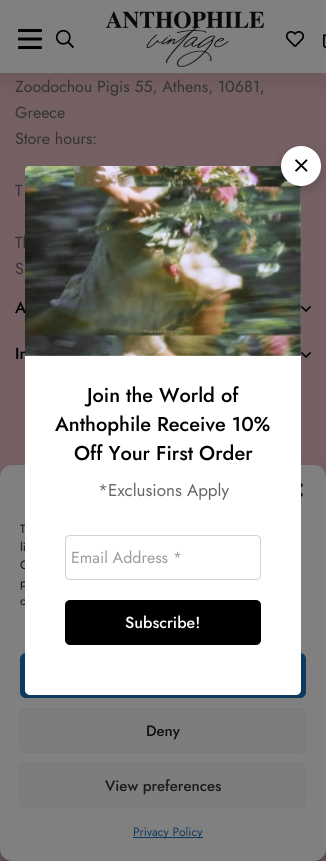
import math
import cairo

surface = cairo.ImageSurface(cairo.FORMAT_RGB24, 326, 861)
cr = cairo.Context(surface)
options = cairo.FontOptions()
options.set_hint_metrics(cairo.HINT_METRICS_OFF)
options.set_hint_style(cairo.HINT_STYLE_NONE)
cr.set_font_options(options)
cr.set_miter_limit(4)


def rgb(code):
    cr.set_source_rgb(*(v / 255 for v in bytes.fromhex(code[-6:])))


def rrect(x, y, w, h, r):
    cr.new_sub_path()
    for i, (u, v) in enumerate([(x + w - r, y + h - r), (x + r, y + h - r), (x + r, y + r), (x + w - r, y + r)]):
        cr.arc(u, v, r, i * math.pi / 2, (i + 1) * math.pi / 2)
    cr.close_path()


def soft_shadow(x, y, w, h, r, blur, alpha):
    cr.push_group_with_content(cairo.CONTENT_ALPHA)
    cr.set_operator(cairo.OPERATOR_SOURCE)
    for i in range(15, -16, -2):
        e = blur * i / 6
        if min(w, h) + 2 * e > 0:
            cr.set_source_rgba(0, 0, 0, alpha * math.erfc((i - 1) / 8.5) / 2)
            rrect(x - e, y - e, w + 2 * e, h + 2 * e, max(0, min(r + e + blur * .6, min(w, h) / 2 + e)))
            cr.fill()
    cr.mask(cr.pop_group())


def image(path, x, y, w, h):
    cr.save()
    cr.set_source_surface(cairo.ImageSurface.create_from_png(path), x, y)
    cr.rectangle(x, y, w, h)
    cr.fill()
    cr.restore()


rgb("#756063")
cr.paint()
rgb("#000000")
soft_shadow(0, 8, 326, 73, 0, 10, 0.1)
rgb("#808080")
cr.rectangle(0, 0, 326, 73)
cr.fill()
image("img/1.png", 18, 29, 24, 20)
image("img/2.png", 55, 29, 19, 19)
image("img/3.png", 105, 11, 160, 56)
image("img/4.png", 285, 31, 20, 16)
image("img/5.png", 323, 34, 3, 15)
image("img/6.png", 301, 306, 10, 6)
image("img/6.png", 301, 352, 10, 6)
rgb("#000000")
soft_shadow(0, 471, 326, 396, 12, 3, 0.23)
soft_shadow(0, 475, 326, 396, 12, 10, 0.19)
rgb("#808080")
rrect(0, 465, 326, 396, 12)
cr.fill()
image("img/9.png", 301, 483, 2, 14)
rgb("#0f3a5f")
rrect(20.5, 653.5, 285, 44, 5.5)
cr.fill_preserve()
cr.set_line_width(1)
cr.stroke()
rgb("#7d7d7d")
rrect(20.5, 708.5, 285, 44, 5.5)
cr.fill_preserve()
rgb("#797979")
cr.stroke()
rgb("#7d7d7d")
rrect(20.5, 763.5, 285, 44, 5.5)
cr.fill_preserve()
rgb("#797979")
cr.stroke()
rgb("#0f3a5f")
cr.rectangle(133, 837, 70, 1)
cr.fill()
cr.select_font_face("Jost")
cr.set_font_size(16)
rgb("#333333")
for x, y, s in [
    (15, 92, "Zoodochou Pigis 55, Athens, 10681,"),
    (15, 118, "Greece"),
    (15, 144, "Store hours:"),
    (15, 196, "T"),
    (15, 248, "Th"),
    (15, 274, "S"),
]:
    cr.move_to(x, y)
    cr.show_text(s)
cr.select_font_face("Jost Medium")
rgb("#000000")
cr.move_to(15, 313)
cr.show_text("A")
cr.move_to(15, 359)
cr.show_text("In")
cr.select_font_face("Jost")
cr.set_font_size(12)
rgb("#111111")
for x, y, s in [
    (20, 533, "T"),
    (20, 551, "li"),
    (20, 569, "C"),
    (20, 587, "p"),
    (20, 605, "o"),
]:
    cr.move_to(x, y)
    cr.show_text(s)
rgb("#ffffff")
rrect(25, 166, 276, 529, 5)
cr.fill()
image("img/8.png", 25, 166, 276, 190)
rgb("#000000")
soft_shadow(281, 150, 40, 40, 20, 5, 0.17)
rgb("#ffffff")
cr.arc(301, 166, 20, 0, 2 * math.pi)
cr.fill()
image("img/7.png", 295, 159, 13, 13)
rgb("#000000")
rrect(65, 600, 196, 45, 5)
cr.fill()
cr.select_font_face("Jost Medium")
cr.set_font_size(16)
rgb("#ffffff")
cr.move_to(125, 628)
cr.show_text("Subscribe!")
rrect(65.5, 535.5, 195, 44, 4.5)
rgb("#d2d2d2")
cr.stroke()
cr.select_font_face("Jost")
rgb("#9b9b9b")
cr.move_to(71, 563)
cr.show_text("Email Address *")
cr.set_font_size(17)
rgb("#666666")
cr.move_to(98, 496)
cr.show_text("*Exclusions Apply")
cr.select_font_face("Jost Medium")
cr.set_font_size(20)
rgb("#000000")
for x, y, s in [
    (74, 460, "Off Your First Order"),
    (55, 431, "Anthophile Receive 10%"),
    (87, 402, "Join the World of"),
]:
    cr.move_to(x, y)
    cr.show_text(s)
cr.set_font_size(15)
rgb("#111111")
cr.move_to(146, 736)
cr.show_text("Deny")
rgb("#1a1a1a")
cr.move_to(105, 791)
cr.show_text("View preferences")
cr.select_font_face("Jost")
cr.set_font_size(12)
rgb("#0f3a5f")
cr.move_to(133, 836)
cr.show_text("Privacy Policy")
surface.write_to_png("page.png")
